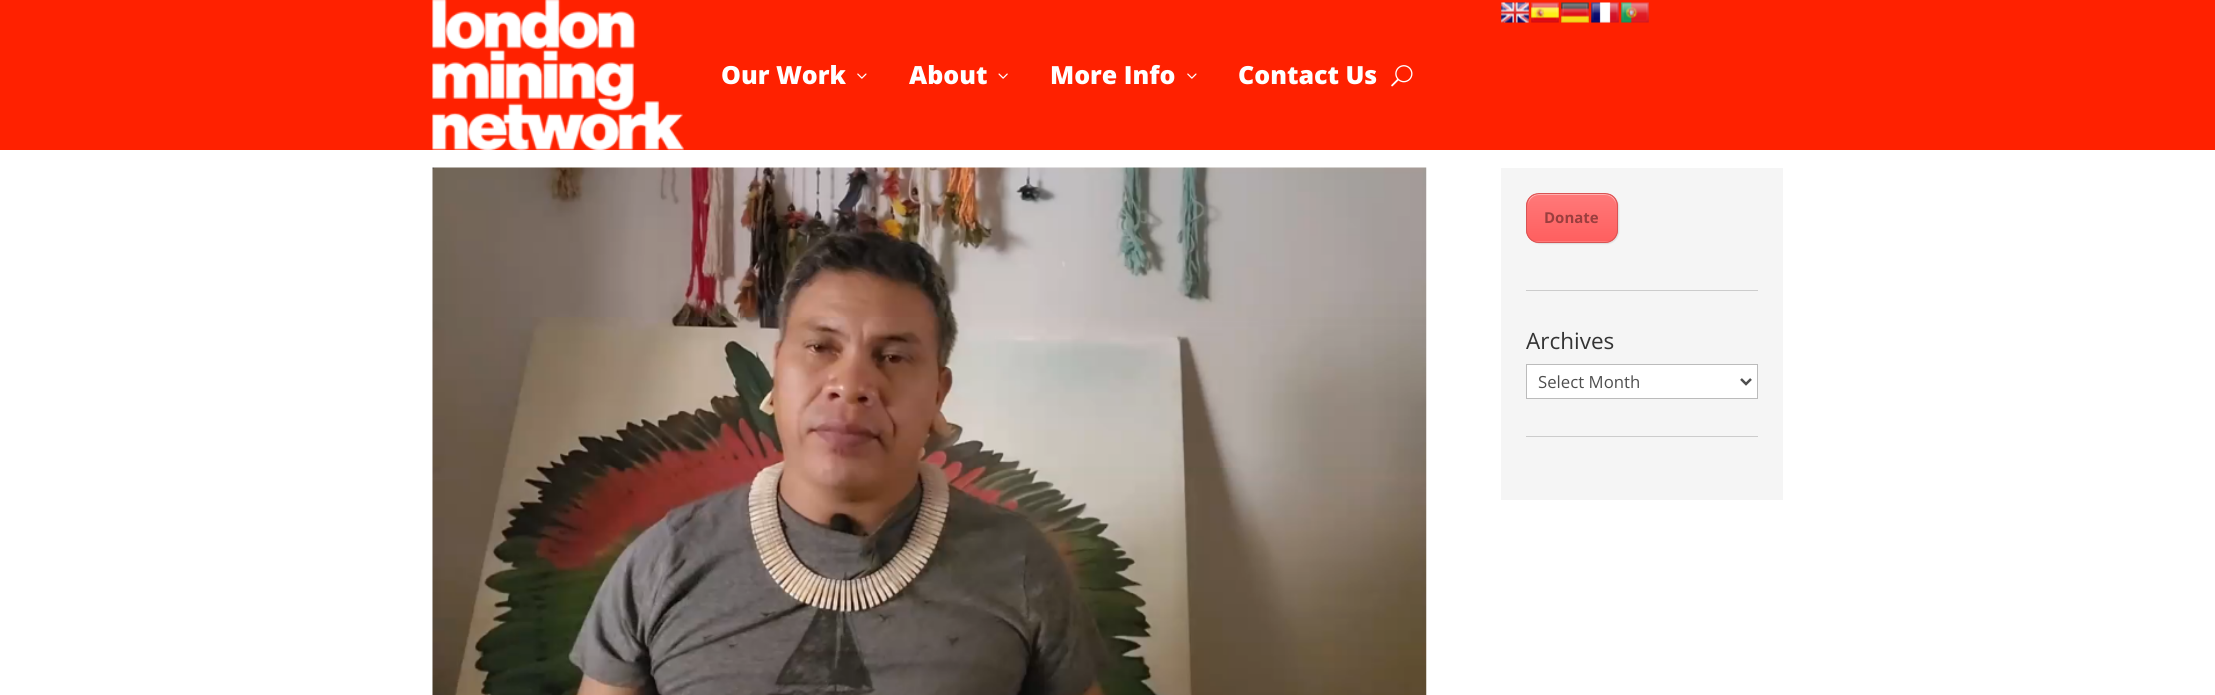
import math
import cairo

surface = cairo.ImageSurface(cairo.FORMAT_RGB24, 2215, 695)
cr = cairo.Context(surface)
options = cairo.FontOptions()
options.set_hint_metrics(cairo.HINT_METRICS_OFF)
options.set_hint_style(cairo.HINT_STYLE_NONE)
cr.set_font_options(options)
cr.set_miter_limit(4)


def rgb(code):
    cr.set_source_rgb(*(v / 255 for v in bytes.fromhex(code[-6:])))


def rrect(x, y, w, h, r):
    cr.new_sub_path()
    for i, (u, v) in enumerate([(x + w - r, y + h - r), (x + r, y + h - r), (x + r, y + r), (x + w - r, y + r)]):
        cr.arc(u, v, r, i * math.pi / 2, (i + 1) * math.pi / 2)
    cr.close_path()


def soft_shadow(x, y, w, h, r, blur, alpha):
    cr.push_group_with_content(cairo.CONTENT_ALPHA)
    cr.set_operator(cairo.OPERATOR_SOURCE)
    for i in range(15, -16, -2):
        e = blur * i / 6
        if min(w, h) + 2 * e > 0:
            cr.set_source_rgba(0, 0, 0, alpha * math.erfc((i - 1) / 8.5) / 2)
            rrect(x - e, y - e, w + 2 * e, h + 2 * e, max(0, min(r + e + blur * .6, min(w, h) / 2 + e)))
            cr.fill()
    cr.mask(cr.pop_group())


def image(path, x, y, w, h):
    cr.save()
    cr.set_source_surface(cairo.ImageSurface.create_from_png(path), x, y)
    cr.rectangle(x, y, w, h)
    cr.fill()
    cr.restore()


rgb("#ffffff")
cr.paint()
rgb("#ff2100")
cr.rectangle(0, 0, 2215, 150)
cr.fill()
image("img/1.png", 1501, 2, 28, 21)
image("img/2.png", 1531, 2, 28, 21)
image("img/3.png", 1561, 2, 28, 21)
image("img/4.png", 1591, 2, 28, 21)
image("img/5.png", 1621, 2, 28, 21)
image("img/6.png", 432, 0, 252, 150)
image("img/7.png", 857, 73, 10, 6)
image("img/8.png", 998, 73, 10, 6)
image("img/7.png", 1187, 73, 10, 6)
image("img/9.png", 1391, 65, 22, 22)
image("img/10.png", 432, 167, 995, 528)
rgb("#f5f5f5")
cr.rectangle(1501, 168, 282, 332)
cr.fill()
rgb("#cccccc")
cr.rectangle(1526, 290, 232, 1)
cr.fill()
rgb("#000000")
soft_shadow(1528, 194, 91, 50, 13, 0.5, 0.1)
cr.save()
rrect(1526, 193, 92, 50, 13)
cr.clip()
gradient = cairo.LinearGradient(1572, 194, 1572, 241)
gradient.add_color_stop_rgba(0, 1, 0.475, 0.475, 1)
gradient.add_color_stop_rgba(1, 1, 0.373, 0.373, 1)
cr.set_source(gradient)
cr.rectangle(1526, 194, 92, 47)
cr.fill()
gradient = cairo.LinearGradient(1572, 241, 1572, 289)
gradient.add_color_stop_rgba(0, 1, 0.475, 0.475, 1)
gradient.add_color_stop_rgba(1, 1, 0.373, 0.373, 1)
cr.set_source(gradient)
cr.rectangle(1526, 241, 92, 2)
cr.fill()
cr.restore()
cr.set_source_rgba(1, 1, 1, 0.4)
cr.new_path()
cr.move_to(1539, 195)
cr.line_to(1605, 195)
cr.curve_to(1611, 195, 1616, 200, 1616, 206)
cr.curve_to(1616, 192, 1604, 194, 1594, 194)
cr.line_to(1550, 194)
cr.curve_to(1540, 194, 1528, 192, 1528, 206)
cr.curve_to(1528, 200, 1533, 195, 1539, 195)
cr.close_path()
cr.fill()
rrect(1526.5, 193.5, 91, 49, 12.5)
rgb("#d85353")
cr.set_line_width(1)
cr.stroke()
rgb("#cccccc")
cr.rectangle(1526, 436, 232, 1)
cr.fill()
rgb("#ffffff")
cr.rectangle(1526.5, 364.5, 231, 34)
cr.fill_preserve()
rgb("#bbbbbb")
cr.stroke()
cr.new_path()
cr.move_to(1741, 379)
cr.line_to(1746, 384)
cr.line_to(1751, 379)
rgb("#4e4e4e")
cr.set_line_width(2.5)
cr.stroke()
cr.select_font_face("Open Sans ExtraBold")
cr.set_font_size(25)
rgb("#ffffff")
for x, y, s in [
    (721, 84, "Our Work"),
    (909, 84, "About"),
    (1050, 84, "More Info"),
    (1238, 84, "Contact Us"),
]:
    cr.move_to(x, y)
    cr.show_text(s)
cr.select_font_face("Open Sans", cairo.FONT_SLANT_NORMAL, cairo.FONT_WEIGHT_BOLD)
cr.set_font_size(15)
rgb("#9a3e3e")
cr.move_to(1544, 223)
cr.show_text("Donate")
cr.select_font_face("Open Sans")
cr.set_font_size(22.5)
rgb("#333333")
cr.move_to(1526, 349)
cr.show_text("Archives")
cr.set_font_size(16.75)
rgb("#4e4e4e")
cr.move_to(1538, 388)
cr.show_text("Select Month")
surface.write_to_png("page.png")
